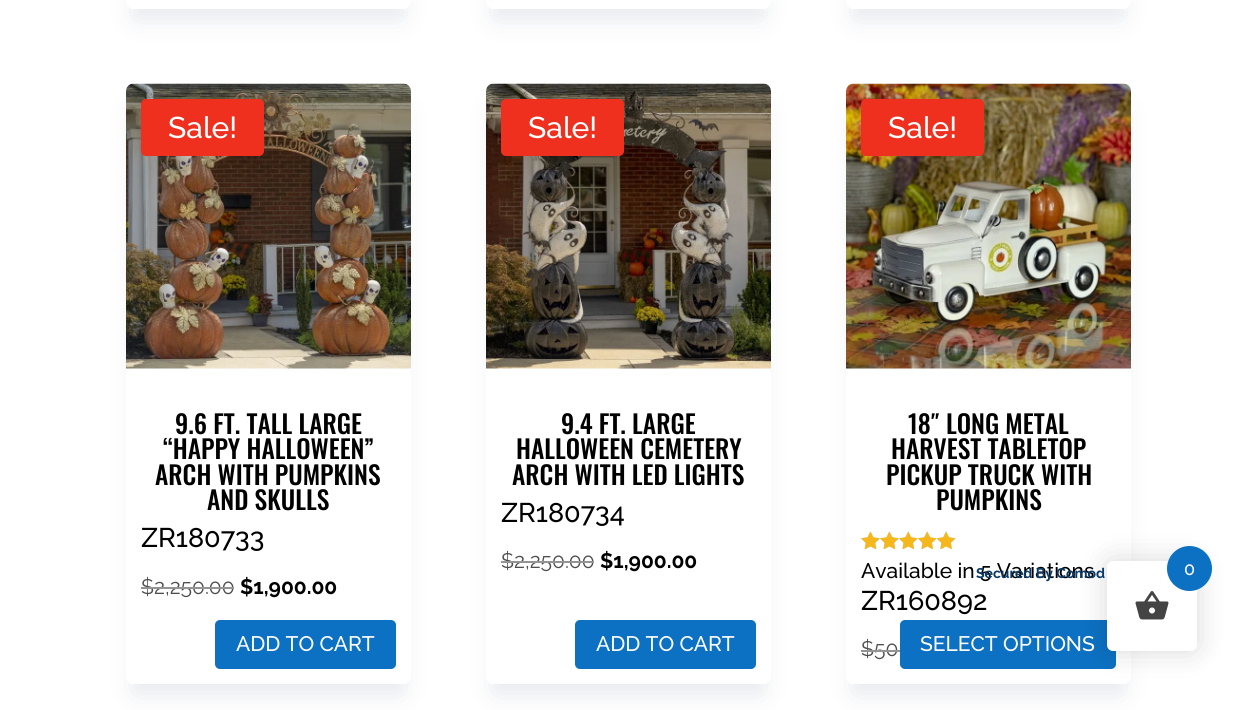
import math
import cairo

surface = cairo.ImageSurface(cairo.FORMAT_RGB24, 1257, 710)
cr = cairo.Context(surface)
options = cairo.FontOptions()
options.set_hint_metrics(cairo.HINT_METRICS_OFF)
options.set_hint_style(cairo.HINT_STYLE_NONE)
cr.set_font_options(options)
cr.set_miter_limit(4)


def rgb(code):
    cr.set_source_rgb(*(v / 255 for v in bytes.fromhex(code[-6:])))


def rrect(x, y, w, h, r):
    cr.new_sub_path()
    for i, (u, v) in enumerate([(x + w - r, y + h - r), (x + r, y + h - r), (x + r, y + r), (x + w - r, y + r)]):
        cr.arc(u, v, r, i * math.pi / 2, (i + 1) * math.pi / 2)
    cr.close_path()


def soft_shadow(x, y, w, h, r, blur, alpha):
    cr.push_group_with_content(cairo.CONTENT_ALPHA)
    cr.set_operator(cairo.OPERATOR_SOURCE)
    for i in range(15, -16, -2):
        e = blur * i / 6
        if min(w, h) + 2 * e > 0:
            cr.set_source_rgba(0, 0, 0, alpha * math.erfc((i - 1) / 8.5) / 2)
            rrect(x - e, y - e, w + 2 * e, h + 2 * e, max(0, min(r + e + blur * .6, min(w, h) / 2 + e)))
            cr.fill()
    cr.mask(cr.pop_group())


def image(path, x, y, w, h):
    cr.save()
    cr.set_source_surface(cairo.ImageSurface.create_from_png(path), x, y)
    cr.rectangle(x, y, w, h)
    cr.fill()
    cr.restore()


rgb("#ffffff")
cr.paint()
cr.save()
cr.set_fill_rule(cairo.FILL_RULE_EVEN_ODD)
cr.new_path()
cr.move_to(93, 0)
cr.line_to(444, 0)
cr.line_to(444, 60)
cr.line_to(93, 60)
cr.close_path()
cr.move_to(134, -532)
cr.line_to(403, -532)
cr.curve_to(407.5, -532, 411, -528.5, 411, -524)
cr.line_to(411, 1)
cr.curve_to(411, 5.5, 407.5, 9, 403, 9)
cr.line_to(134, 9)
cr.curve_to(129.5, 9, 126, 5.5, 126, 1)
cr.line_to(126, -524)
cr.curve_to(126, -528.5, 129.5, -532, 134, -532)
cr.close_path()
cr.clip()
rgb("#223865")
soft_shadow(135, -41, 267, 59, 0, 13.5, 0.12)
cr.restore()
cr.save()
cr.set_fill_rule(cairo.FILL_RULE_EVEN_ODD)
cr.new_path()
cr.move_to(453, 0)
cr.line_to(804, 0)
cr.line_to(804, 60)
cr.line_to(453, 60)
cr.close_path()
cr.move_to(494, -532)
cr.line_to(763, -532)
cr.curve_to(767.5, -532, 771, -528.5, 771, -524)
cr.line_to(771, 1)
cr.curve_to(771, 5.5, 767.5, 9, 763, 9)
cr.line_to(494, 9)
cr.curve_to(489.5, 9, 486, 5.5, 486, 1)
cr.line_to(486, -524)
cr.curve_to(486, -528.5, 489.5, -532, 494, -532)
cr.close_path()
cr.clip()
rgb("#223865")
soft_shadow(495, -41, 267, 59, 0, 13.5, 0.12)
cr.restore()
cr.save()
cr.set_fill_rule(cairo.FILL_RULE_EVEN_ODD)
cr.new_path()
cr.move_to(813, 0)
cr.line_to(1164, 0)
cr.line_to(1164, 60)
cr.line_to(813, 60)
cr.close_path()
cr.move_to(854, -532)
cr.line_to(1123, -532)
cr.curve_to(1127.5, -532, 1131, -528.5, 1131, -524)
cr.line_to(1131, 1)
cr.curve_to(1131, 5.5, 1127.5, 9, 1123, 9)
cr.line_to(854, 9)
cr.curve_to(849.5, 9, 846, 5.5, 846, 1)
cr.line_to(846, -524)
cr.curve_to(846, -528.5, 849.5, -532, 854, -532)
cr.close_path()
cr.clip()
rgb("#223865")
soft_shadow(855, -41, 267, 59, 0, 13.5, 0.12)
cr.restore()
cr.save()
cr.set_fill_rule(cairo.FILL_RULE_EVEN_ODD)
cr.new_path()
cr.move_to(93, 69)
cr.line_to(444, 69)
cr.line_to(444, 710)
cr.line_to(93, 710)
cr.close_path()
cr.move_to(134, 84)
cr.line_to(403, 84)
cr.curve_to(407.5, 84, 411, 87.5, 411, 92)
cr.line_to(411, 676)
cr.curve_to(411, 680.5, 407.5, 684, 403, 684)
cr.line_to(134, 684)
cr.curve_to(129.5, 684, 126, 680.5, 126, 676)
cr.line_to(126, 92)
cr.curve_to(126, 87.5, 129.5, 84, 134, 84)
cr.close_path()
cr.clip()
rgb("#223865")
soft_shadow(135, 111, 267, 582, 0, 13.5, 0.12)
cr.restore()
image("img/1.png", 126, 83, 285, 286)
rgb("#ef301f")
rrect(141, 99, 123, 57, 5)
cr.fill()
rgb("#0c71c3")
rrect(215, 620, 181, 49, 5)
cr.fill()
cr.save()
cr.set_fill_rule(cairo.FILL_RULE_EVEN_ODD)
cr.new_path()
cr.move_to(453, 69)
cr.line_to(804, 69)
cr.line_to(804, 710)
cr.line_to(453, 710)
cr.close_path()
cr.move_to(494, 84)
cr.line_to(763, 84)
cr.curve_to(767.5, 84, 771, 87.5, 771, 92)
cr.line_to(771, 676)
cr.curve_to(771, 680.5, 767.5, 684, 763, 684)
cr.line_to(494, 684)
cr.curve_to(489.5, 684, 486, 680.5, 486, 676)
cr.line_to(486, 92)
cr.curve_to(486, 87.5, 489.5, 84, 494, 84)
cr.close_path()
cr.clip()
rgb("#223865")
soft_shadow(495, 111, 267, 582, 0, 13.5, 0.12)
cr.restore()
image("img/2.png", 486, 83, 285, 286)
rgb("#ef301f")
rrect(501, 99, 123, 57, 5)
cr.fill()
rgb("#0c71c3")
rrect(575, 620, 181, 49, 5)
cr.fill()
cr.save()
cr.set_fill_rule(cairo.FILL_RULE_EVEN_ODD)
cr.new_path()
cr.move_to(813, 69)
cr.line_to(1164, 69)
cr.line_to(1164, 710)
cr.line_to(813, 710)
cr.close_path()
cr.move_to(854, 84)
cr.line_to(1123, 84)
cr.curve_to(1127.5, 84, 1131, 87.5, 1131, 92)
cr.line_to(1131, 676)
cr.curve_to(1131, 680.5, 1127.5, 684, 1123, 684)
cr.line_to(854, 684)
cr.curve_to(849.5, 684, 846, 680.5, 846, 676)
cr.line_to(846, 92)
cr.curve_to(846, 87.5, 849.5, 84, 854, 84)
cr.close_path()
cr.clip()
rgb("#223865")
soft_shadow(855, 111, 267, 582, 0, 13.5, 0.12)
cr.restore()
image("img/3.png", 846, 83, 285, 286)
rgb("#ef301f")
rrect(861, 99, 123, 57, 5)
cr.fill()
image("img/4.png", 861, 531, 95, 18)
image("img/5.png", 861, 531, 95, 18)
rgb("#0c71c3")
rrect(900, 620, 216, 49, 5)
cr.fill()
rgb("#000000")
soft_shadow(1107, 561, 90, 90, 6, 15, 0.15)
rgb("#ffffff")
rrect(1107, 561, 90, 90, 6)
cr.fill()
rgb("#0c71c3")
cr.arc(1189.5, 568.5, 22.5, 0, 2 * math.pi)
cr.fill()
image("img/6.png", 1135, 591, 34, 29)
cr.select_font_face("Raleway Medium")
cr.set_font_size(30)
rgb("#ffffff")
cr.move_to(168, 138)
cr.show_text("Sale!")
cr.select_font_face("Oswald Medium")
cr.set_font_size(25.5)
rgb("#000000")
for x, y, s in [
    (175, 434, "9.6 FT. TALL LARGE"),
    (163, 459, "“HAPPY HALLOWEEN”"),
    (155, 485, "ARCH WITH PUMPKINS"),
    (207, 510, "AND SKULLS"),
]:
    cr.move_to(x, y)
    cr.show_text(s)
cr.select_font_face("Raleway Medium")
cr.set_font_size(27)
cr.move_to(141, 547)
cr.show_text("ZR180733")
cr.select_font_face("Raleway")
cr.set_font_size(21)
rgb("#4d4d4d")
cr.move_to(141, 594)
cr.show_text("$2,250.00")
rgb("#949494")
cr.rectangle(141, 587, 93, 2)
cr.fill()
cr.select_font_face("Raleway", cairo.FONT_SLANT_NORMAL, cairo.FONT_WEIGHT_BOLD)
rgb("#000000")
cr.move_to(240, 594)
cr.show_text("$1,900.00")
cr.select_font_face("Raleway Medium")
rgb("#ffffff")
cr.move_to(236, 651)
cr.show_text("ADD TO CART")
cr.set_font_size(30)
cr.move_to(528, 138)
cr.show_text("Sale!")
cr.select_font_face("Oswald Medium")
cr.set_font_size(25.5)
rgb("#000000")
for x, y, s in [
    (561, 434, "9.4 FT. LARGE"),
    (516, 459, "HALLOWEEN CEMETERY"),
    (512, 485, "ARCH WITH LED LIGHTS"),
]:
    cr.move_to(x, y)
    cr.show_text(s)
cr.select_font_face("Raleway Medium")
cr.set_font_size(27)
cr.move_to(501, 522)
cr.show_text("ZR180734")
cr.select_font_face("Raleway")
cr.set_font_size(21)
rgb("#4d4d4d")
cr.move_to(501, 568)
cr.show_text("$")
rgb("#949494")
cr.rectangle(501, 561, 14, 2)
cr.fill()
rgb("#4d4d4d")
cr.move_to(514, 568)
cr.show_text("2,250.00")
rgb("#949494")
cr.rectangle(515, 561, 79, 2)
cr.fill()
cr.select_font_face("Raleway", cairo.FONT_SLANT_NORMAL, cairo.FONT_WEIGHT_BOLD)
rgb("#000000")
cr.move_to(600, 568)
cr.show_text("$1,900.00")
cr.select_font_face("Raleway Medium")
rgb("#ffffff")
cr.move_to(596, 651)
cr.show_text("ADD TO CART")
cr.set_font_size(30)
cr.move_to(888, 138)
cr.show_text("Sale!")
cr.select_font_face("Oswald Medium")
cr.set_font_size(25.5)
rgb("#000000")
for x, y, s in [
    (908, 434, "18″ LONG METAL"),
    (891, 459, "HARVEST TABLETOP"),
    (886, 485, "PICKUP TRUCK WITH"),
    (936, 510, "PUMPKINS"),
]:
    cr.move_to(x, y)
    cr.show_text(s)
cr.select_font_face("Raleway Medium")
cr.set_font_size(21)
cr.move_to(861, 578)
cr.show_text("Available in 5 Variations")
cr.set_font_size(27)
cr.move_to(861, 610)
cr.show_text("ZR160892")
cr.select_font_face("Raleway")
cr.set_font_size(21)
rgb("#4d4d4d")
cr.move_to(861, 656)
cr.show_text("$50")
rgb("#949494")
cr.rectangle(861, 650, 39, 2)
cr.fill()
cr.select_font_face("Raleway Medium")
rgb("#ffffff")
cr.move_to(920, 651)
cr.show_text("SELECT OPTIONS")
cr.set_font_size(18)
cr.move_to(1184, 575)
cr.show_text("0")
cr.select_font_face("Raleway", cairo.FONT_SLANT_NORMAL, cairo.FONT_WEIGHT_BOLD)
cr.set_font_size(14)
rgb("#0a3b68")
cr.move_to(976, 578)
cr.show_text("Secured By Comod")
surface.write_to_png("page.png")
